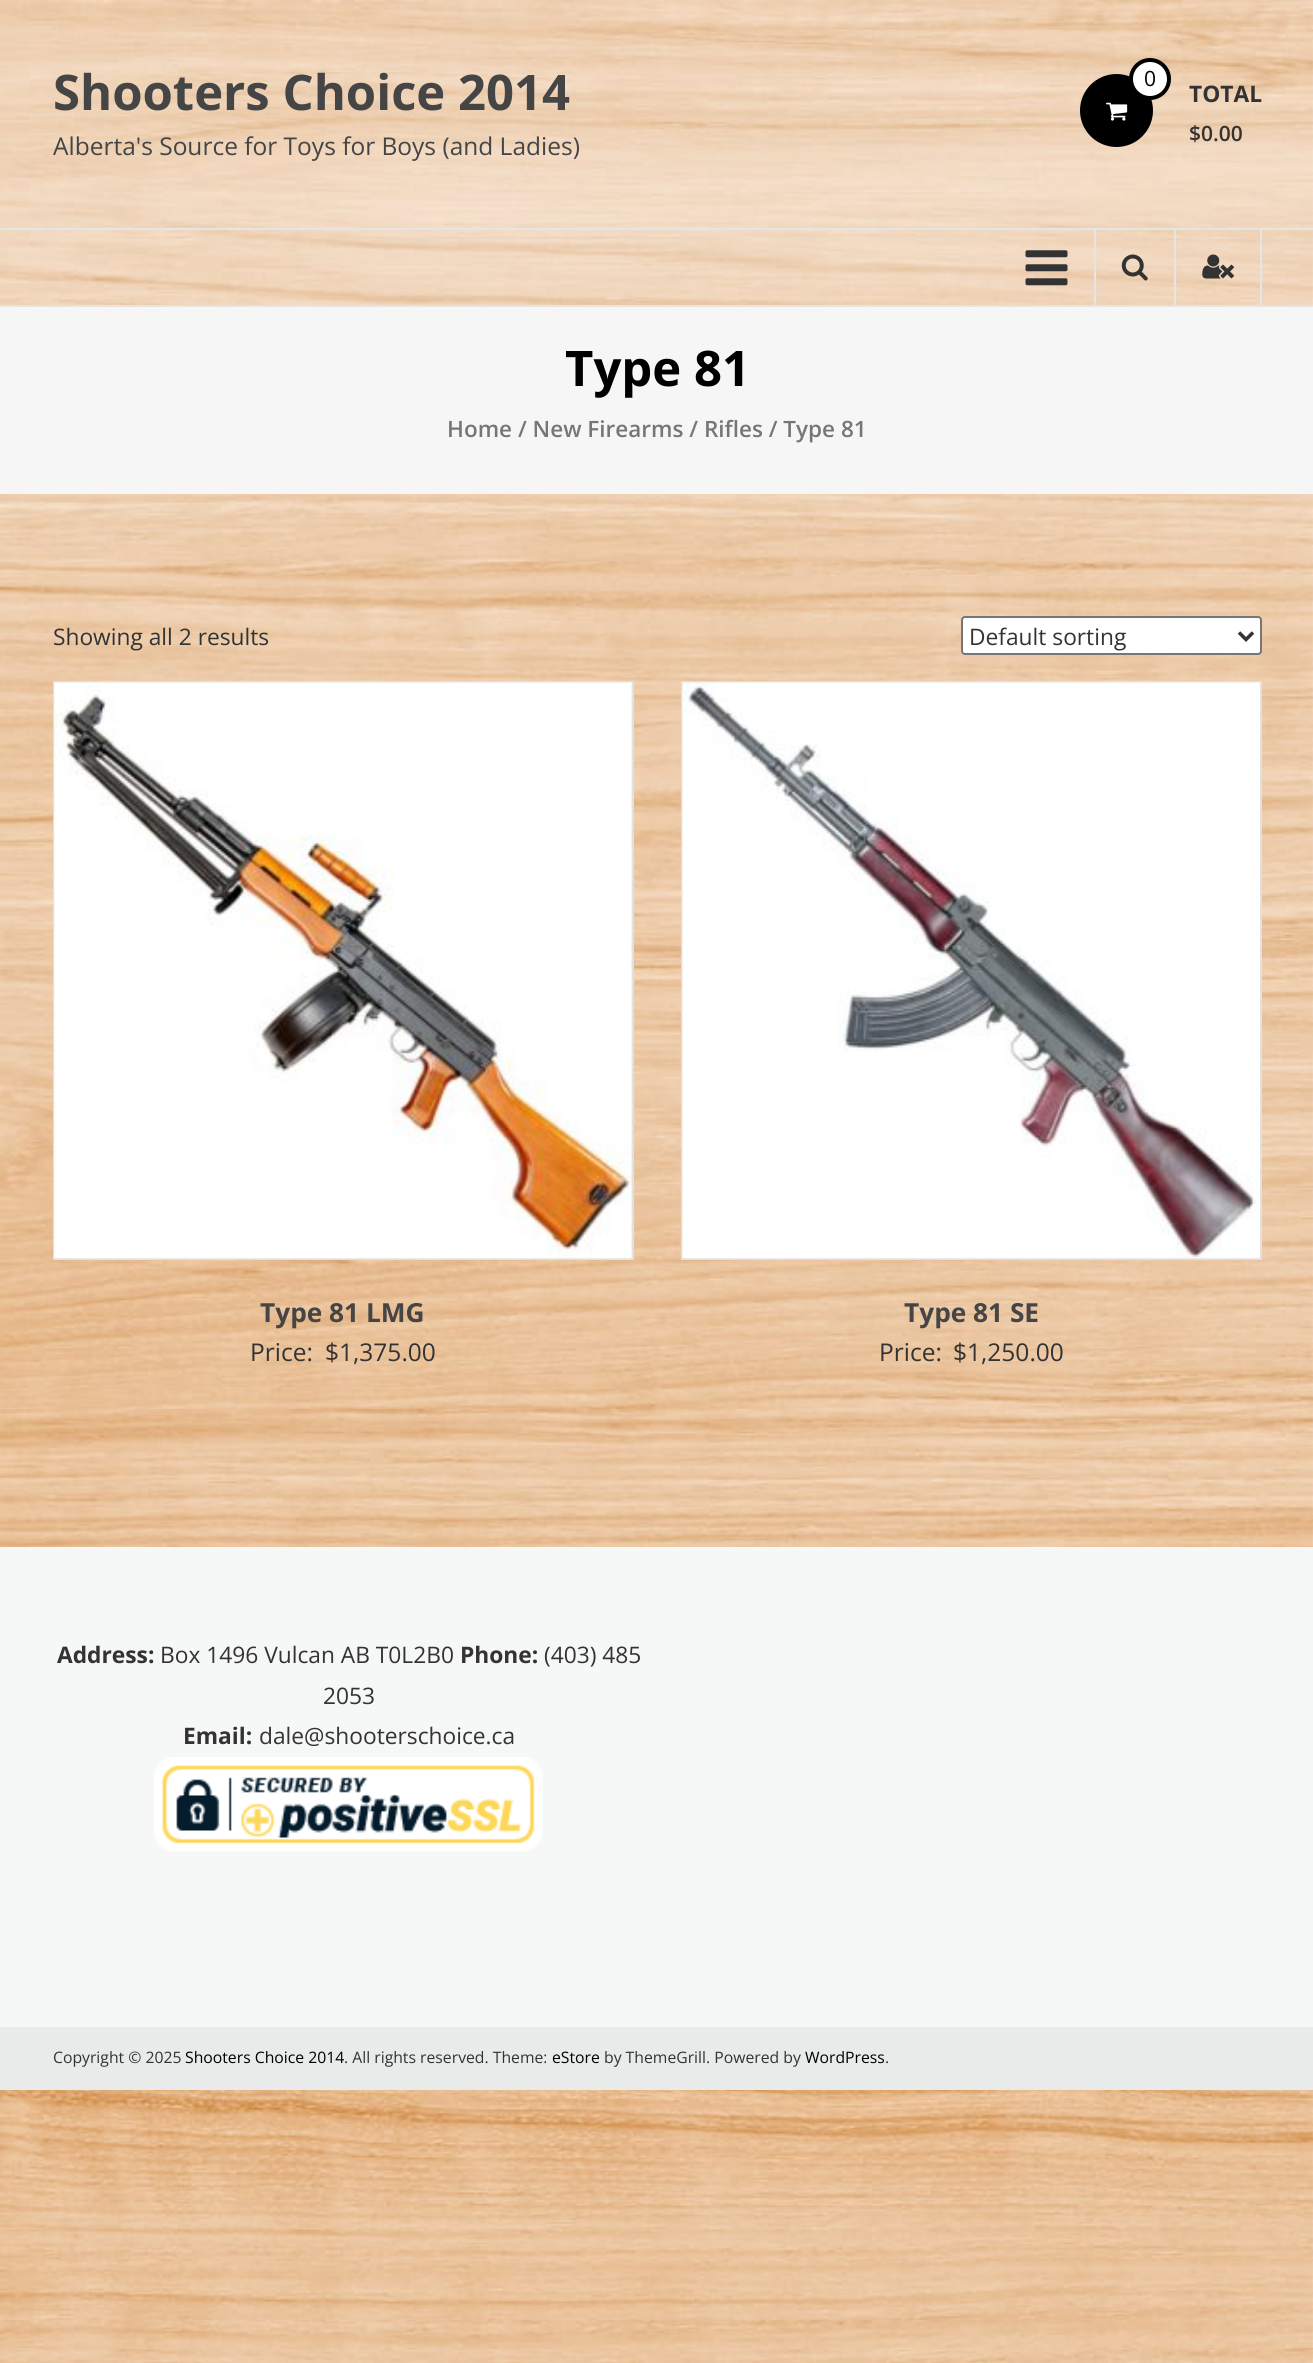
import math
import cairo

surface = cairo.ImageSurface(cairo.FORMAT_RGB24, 1313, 2363)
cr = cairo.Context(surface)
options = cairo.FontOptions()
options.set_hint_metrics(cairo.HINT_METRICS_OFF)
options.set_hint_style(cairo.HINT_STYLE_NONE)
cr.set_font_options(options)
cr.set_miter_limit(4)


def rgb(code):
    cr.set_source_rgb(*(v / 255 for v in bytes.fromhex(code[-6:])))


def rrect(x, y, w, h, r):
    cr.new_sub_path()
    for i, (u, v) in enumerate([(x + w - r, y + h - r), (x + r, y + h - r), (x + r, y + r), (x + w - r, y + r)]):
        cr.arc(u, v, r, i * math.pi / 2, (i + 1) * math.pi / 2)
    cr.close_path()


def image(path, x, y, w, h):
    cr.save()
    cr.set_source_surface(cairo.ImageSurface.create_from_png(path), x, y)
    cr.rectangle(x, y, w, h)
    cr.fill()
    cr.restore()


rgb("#ffffff")
cr.paint()
image("img/1.png", 0, 0, 1313, 2363)
rgb("#000000")
cr.arc(1116.5, 110.5, 36.5, 0, 2 * math.pi)
cr.fill()
rgb("#ffffff")
cr.arc(1150, 79, 19, 0, 2 * math.pi)
cr.fill_preserve()
rgb("#000000")
cr.set_line_width(4)
cr.stroke()
image("img/2.png", 1106, 102, 22, 19)
rgb("#e5e5e5")
cr.rectangle(0, 228, 1313, 2)
cr.fill()
cr.rectangle(0, 305, 1313, 2)
cr.fill()
image("img/3.png", 1025, 250, 43, 36)
cr.rectangle(1094, 229, 2, 76)
cr.fill()
image("img/4.png", 1121, 254, 27, 27)
cr.rectangle(1260, 229, 2, 76)
cr.fill()
cr.rectangle(1174, 229, 2, 76)
cr.fill()
image("img/5.png", 1202, 254, 33, 25)
rgb("#f6f6f6")
cr.rectangle(0, 307, 1313, 187)
cr.fill()
rgb("#ffffff")
rrect(962, 617, 299, 37, 3)
cr.fill_preserve()
rgb("#767676")
cr.set_line_width(2)
cr.stroke()
cr.new_path()
cr.move_to(1239, 632.5)
cr.line_to(1246, 639.5)
cr.line_to(1253, 632.5)
rgb("#333333")
cr.set_line_width(3.5)
cr.stroke()
cr.rectangle(54, 682, 579, 577)
rgb("#e1e1e1")
cr.set_line_width(2)
cr.stroke()
image("img/6.png", 54, 682, 578, 577)
cr.rectangle(682, 682, 579, 577)
cr.stroke()
image("img/7.png", 682, 682, 578, 577)
rgb("#f6f7f7")
cr.rectangle(0, 1547, 1313, 480)
cr.fill()
image("img/8.png", 154, 1757, 389, 95)
rgb("#e9ebeb")
cr.rectangle(0, 2027, 1313, 63)
cr.fill()
cr.select_font_face("Open Sans", cairo.FONT_SLANT_NORMAL, cairo.FONT_WEIGHT_BOLD)
cr.set_font_size(49)
rgb("#454545")
cr.move_to(53, 110)
cr.show_text("Shooters Choice 2014")
cr.select_font_face("Open Sans")
cr.set_font_size(24.5)
cr.move_to(53, 155)
cr.show_text("Alberta's Source for Toys for Boys (and Ladies)")
cr.set_font_size(21)
rgb("#000000")
cr.move_to(1144, 86)
cr.show_text("0")
cr.select_font_face("Open Sans", cairo.FONT_SLANT_NORMAL, cairo.FONT_WEIGHT_BOLD)
cr.set_font_size(22.75)
rgb("#333333")
cr.move_to(1189, 102)
cr.show_text("TOTAL")
cr.select_font_face("Open Sans SemiBold")
cr.set_font_size(21)
cr.move_to(1189, 141)
cr.show_text("$0.00")
cr.select_font_face("Open Sans", cairo.FONT_SLANT_NORMAL, cairo.FONT_WEIGHT_BOLD)
cr.set_font_size(49)
rgb("#000000")
cr.move_to(565, 386)
cr.show_text("Type 81")
cr.select_font_face("Open Sans SemiBold")
cr.set_font_size(22.5)
rgb("#767676")
cr.move_to(447, 437)
cr.show_text("Home / New Firearms / Rifles / Type 81")
cr.select_font_face("Open Sans")
cr.set_font_size(22.75)
rgb("#333333")
cr.move_to(53, 645)
cr.show_text("Showing all 2 results")
cr.move_to(969, 645)
cr.show_text("Default sorting")
cr.select_font_face("Open Sans", cairo.FONT_SLANT_NORMAL, cairo.FONT_WEIGHT_BOLD)
cr.set_font_size(26.25)
rgb("#454545")
cr.move_to(260, 1322)
cr.show_text("Type 81 LMG")
cr.select_font_face("Open Sans")
cr.set_font_size(24.5)
rgb("#333333")
cr.move_to(250, 1361)
cr.show_text("Price:")
cr.move_to(325, 1361)
cr.show_text("$1,375.00")
cr.select_font_face("Open Sans", cairo.FONT_SLANT_NORMAL, cairo.FONT_WEIGHT_BOLD)
cr.set_font_size(26.25)
rgb("#454545")
cr.move_to(904, 1322)
cr.show_text("Type 81 SE")
cr.select_font_face("Open Sans")
cr.set_font_size(24.5)
rgb("#333333")
cr.move_to(879, 1361)
cr.show_text("Price:")
cr.move_to(953, 1361)
cr.show_text("$1,250.00")
cr.select_font_face("Open Sans", cairo.FONT_SLANT_NORMAL, cairo.FONT_WEIGHT_BOLD)
cr.set_font_size(22.75)
cr.move_to(57, 1663)
cr.show_text("Address:")
cr.select_font_face("Open Sans")
cr.move_to(160, 1663)
cr.show_text("Box 1496 Vulcan AB T0L2B0")
cr.select_font_face("Open Sans", cairo.FONT_SLANT_NORMAL, cairo.FONT_WEIGHT_BOLD)
cr.move_to(460, 1663)
cr.show_text("Phone:")
cr.select_font_face("Open Sans")
cr.move_to(544, 1663)
cr.show_text("(403) 485")
cr.move_to(323, 1704)
cr.show_text("2053")
cr.select_font_face("Open Sans", cairo.FONT_SLANT_NORMAL, cairo.FONT_WEIGHT_BOLD)
cr.move_to(183, 1744)
cr.show_text("Email:")
cr.select_font_face("Open Sans")
cr.move_to(259, 1744)
cr.show_text("dale@shooterschoice.ca")
cr.set_font_size(15.75)
cr.move_to(53, 2063)
cr.show_text("Copyright © 2025")
rgb("#000000")
cr.move_to(185, 2063)
cr.show_text("Shooters Choice 2014")
rgb("#333333")
cr.move_to(344, 2063)
cr.show_text(". All rights reserved. Theme:")
rgb("#000000")
cr.move_to(552, 2063)
cr.show_text("eStore")
rgb("#333333")
cr.move_to(604, 2063)
cr.show_text("by ThemeGrill. Powered by")
rgb("#000000")
cr.move_to(805, 2063)
cr.show_text("WordPress")
rgb("#333333")
cr.move_to(885, 2063)
cr.show_text(".")
surface.write_to_png("page.png")
